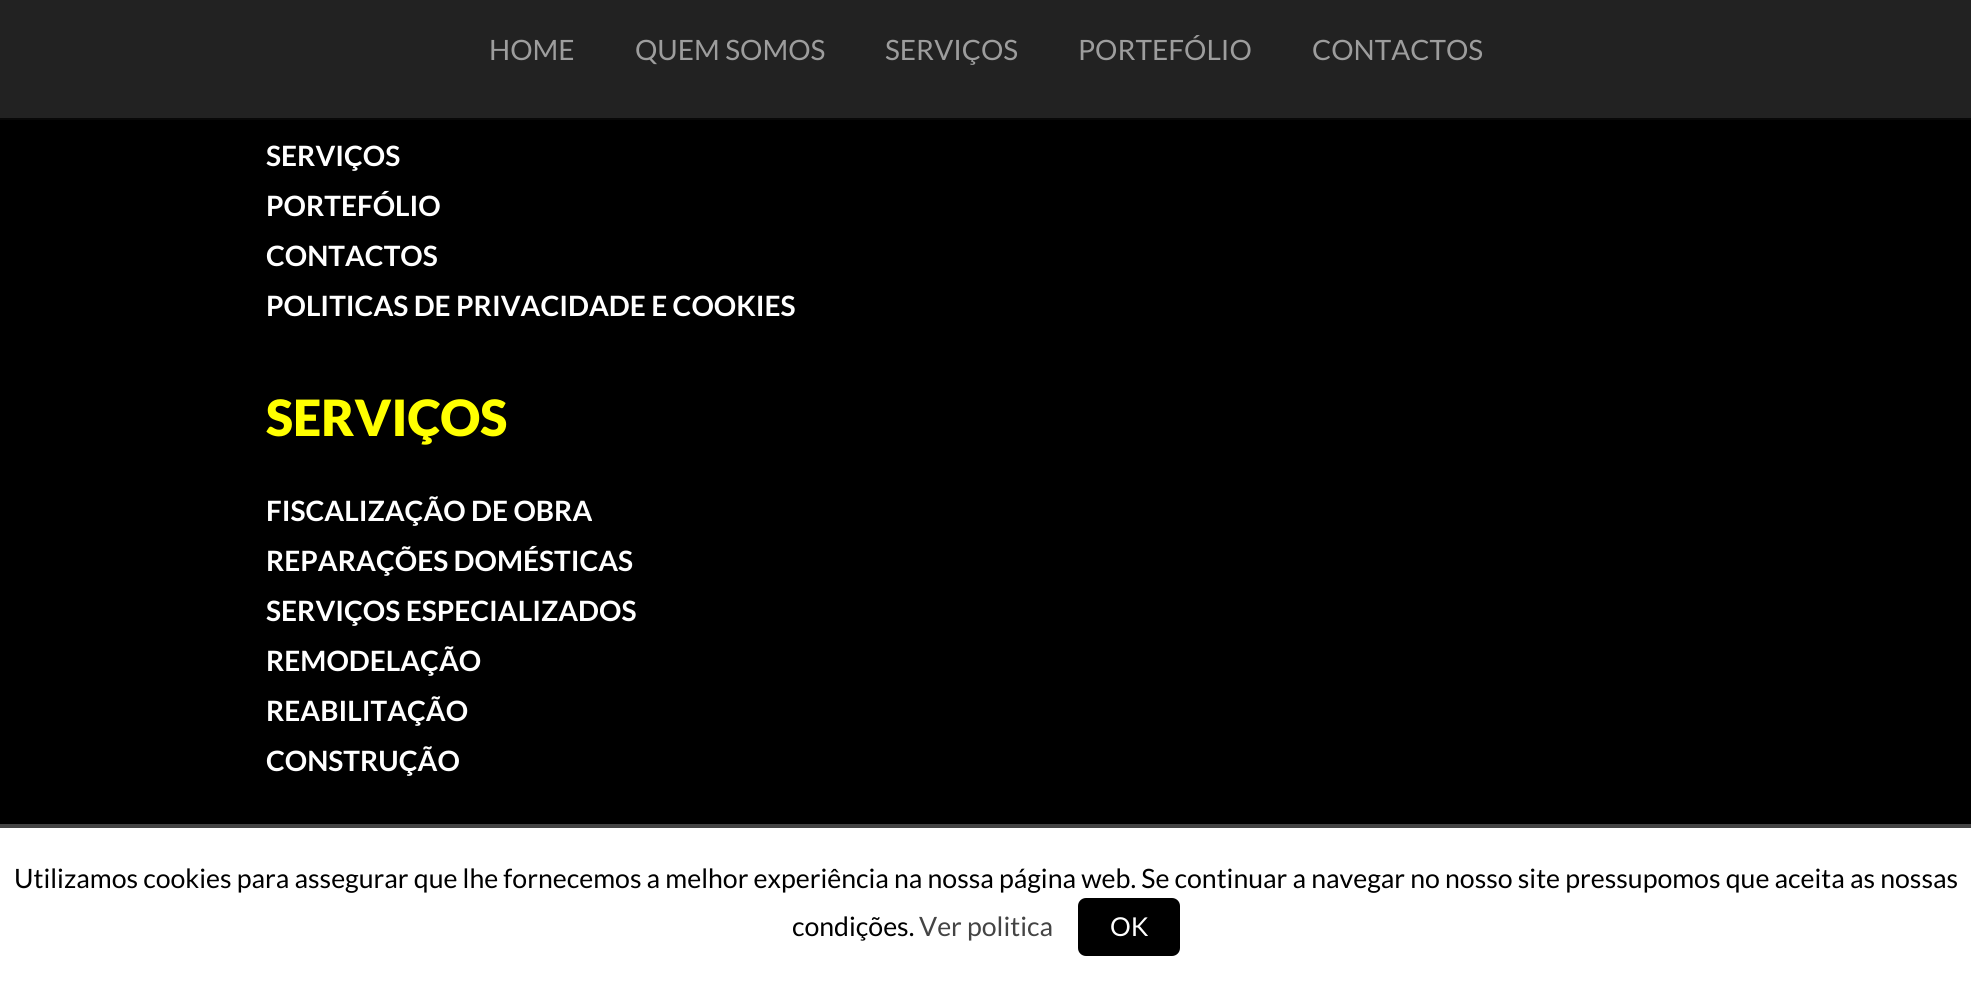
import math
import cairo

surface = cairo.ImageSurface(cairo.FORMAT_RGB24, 1971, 987)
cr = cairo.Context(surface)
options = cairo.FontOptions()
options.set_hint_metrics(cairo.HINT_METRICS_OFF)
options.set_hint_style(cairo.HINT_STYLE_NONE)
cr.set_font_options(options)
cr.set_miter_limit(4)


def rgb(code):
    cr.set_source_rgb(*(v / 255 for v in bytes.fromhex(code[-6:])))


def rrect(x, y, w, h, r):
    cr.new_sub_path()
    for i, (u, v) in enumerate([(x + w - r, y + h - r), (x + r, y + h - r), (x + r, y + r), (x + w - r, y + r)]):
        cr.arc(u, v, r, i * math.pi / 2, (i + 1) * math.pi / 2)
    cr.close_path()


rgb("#000000")
cr.paint()
for x, y, w, h, color in [
    (0, 0, 1971, 118, "#222222"),
    (0, 118, 1971, 2, "#080808"),
    (0, 828, 1971, 159, "#ffffff"),
    (0, 824, 1971, 4, "#444444"),
]:
    rgb(color)
    cr.rectangle(x, y, w, h)
    cr.fill()
rgb("#000000")
rrect(1078, 898, 102, 58, 8)
cr.fill()
cr.select_font_face("Lato")
cr.set_font_size(28)
rgb("#9d9d9d")
for x, y, s in [
    (489, 60, "HOME"),
    (635, 60, "QUEM SOMOS"),
    (885, 60, "SERVIÇOS"),
    (1078, 60, "PORTEFÓLIO"),
    (1312, 60, "CONTACTOS"),
]:
    cr.move_to(x, y)
    cr.show_text(s)
cr.select_font_face("Lato", cairo.FONT_SLANT_NORMAL, cairo.FONT_WEIGHT_BOLD)
rgb("#ffffff")
for x, y, s in [
    (266, 166, "SERVIÇOS"),
    (266, 216, "PORTEFÓLIO"),
    (266, 266, "CONTACTOS"),
    (266, 316, "POLITICAS DE PRIVACIDADE E COOKIES"),
]:
    cr.move_to(x, y)
    cr.show_text(s)
cr.select_font_face("Lato Black")
cr.set_font_size(50)
rgb("#ffff00")
cr.move_to(266, 436)
cr.show_text("SERVIÇOS")
cr.select_font_face("Lato", cairo.FONT_SLANT_NORMAL, cairo.FONT_WEIGHT_BOLD)
cr.set_font_size(28)
rgb("#ffffff")
for x, y, s in [
    (266, 521, "FISCALIZAÇÃO DE OBRA"),
    (266, 571, "REPARAÇÕES DOMÉSTICAS"),
    (266, 621, "SERVIÇOS ESPECIALIZADOS"),
    (266, 671, "REMODELAÇÃO"),
    (266, 721, "REABILITAÇÃO"),
    (266, 771, "CONSTRUÇÃO"),
]:
    cr.move_to(x, y)
    cr.show_text(s)
cr.select_font_face("Lato")
cr.set_font_size(26.67)
rgb("#000000")
cr.move_to(14, 888)
cr.show_text("Utilizamos cookies para assegurar que lhe fornecemos a melhor experiência na nossa página web. Se continuar a navegar no nosso site pressupomos que aceita as nossas")
cr.move_to(792, 936)
cr.show_text("condições.")
rgb("#444444")
cr.move_to(919, 936)
cr.show_text("Ver politica")
cr.set_font_size(26)
rgb("#ffffff")
cr.move_to(1110, 936)
cr.show_text("OK")
surface.write_to_png("page.png")
